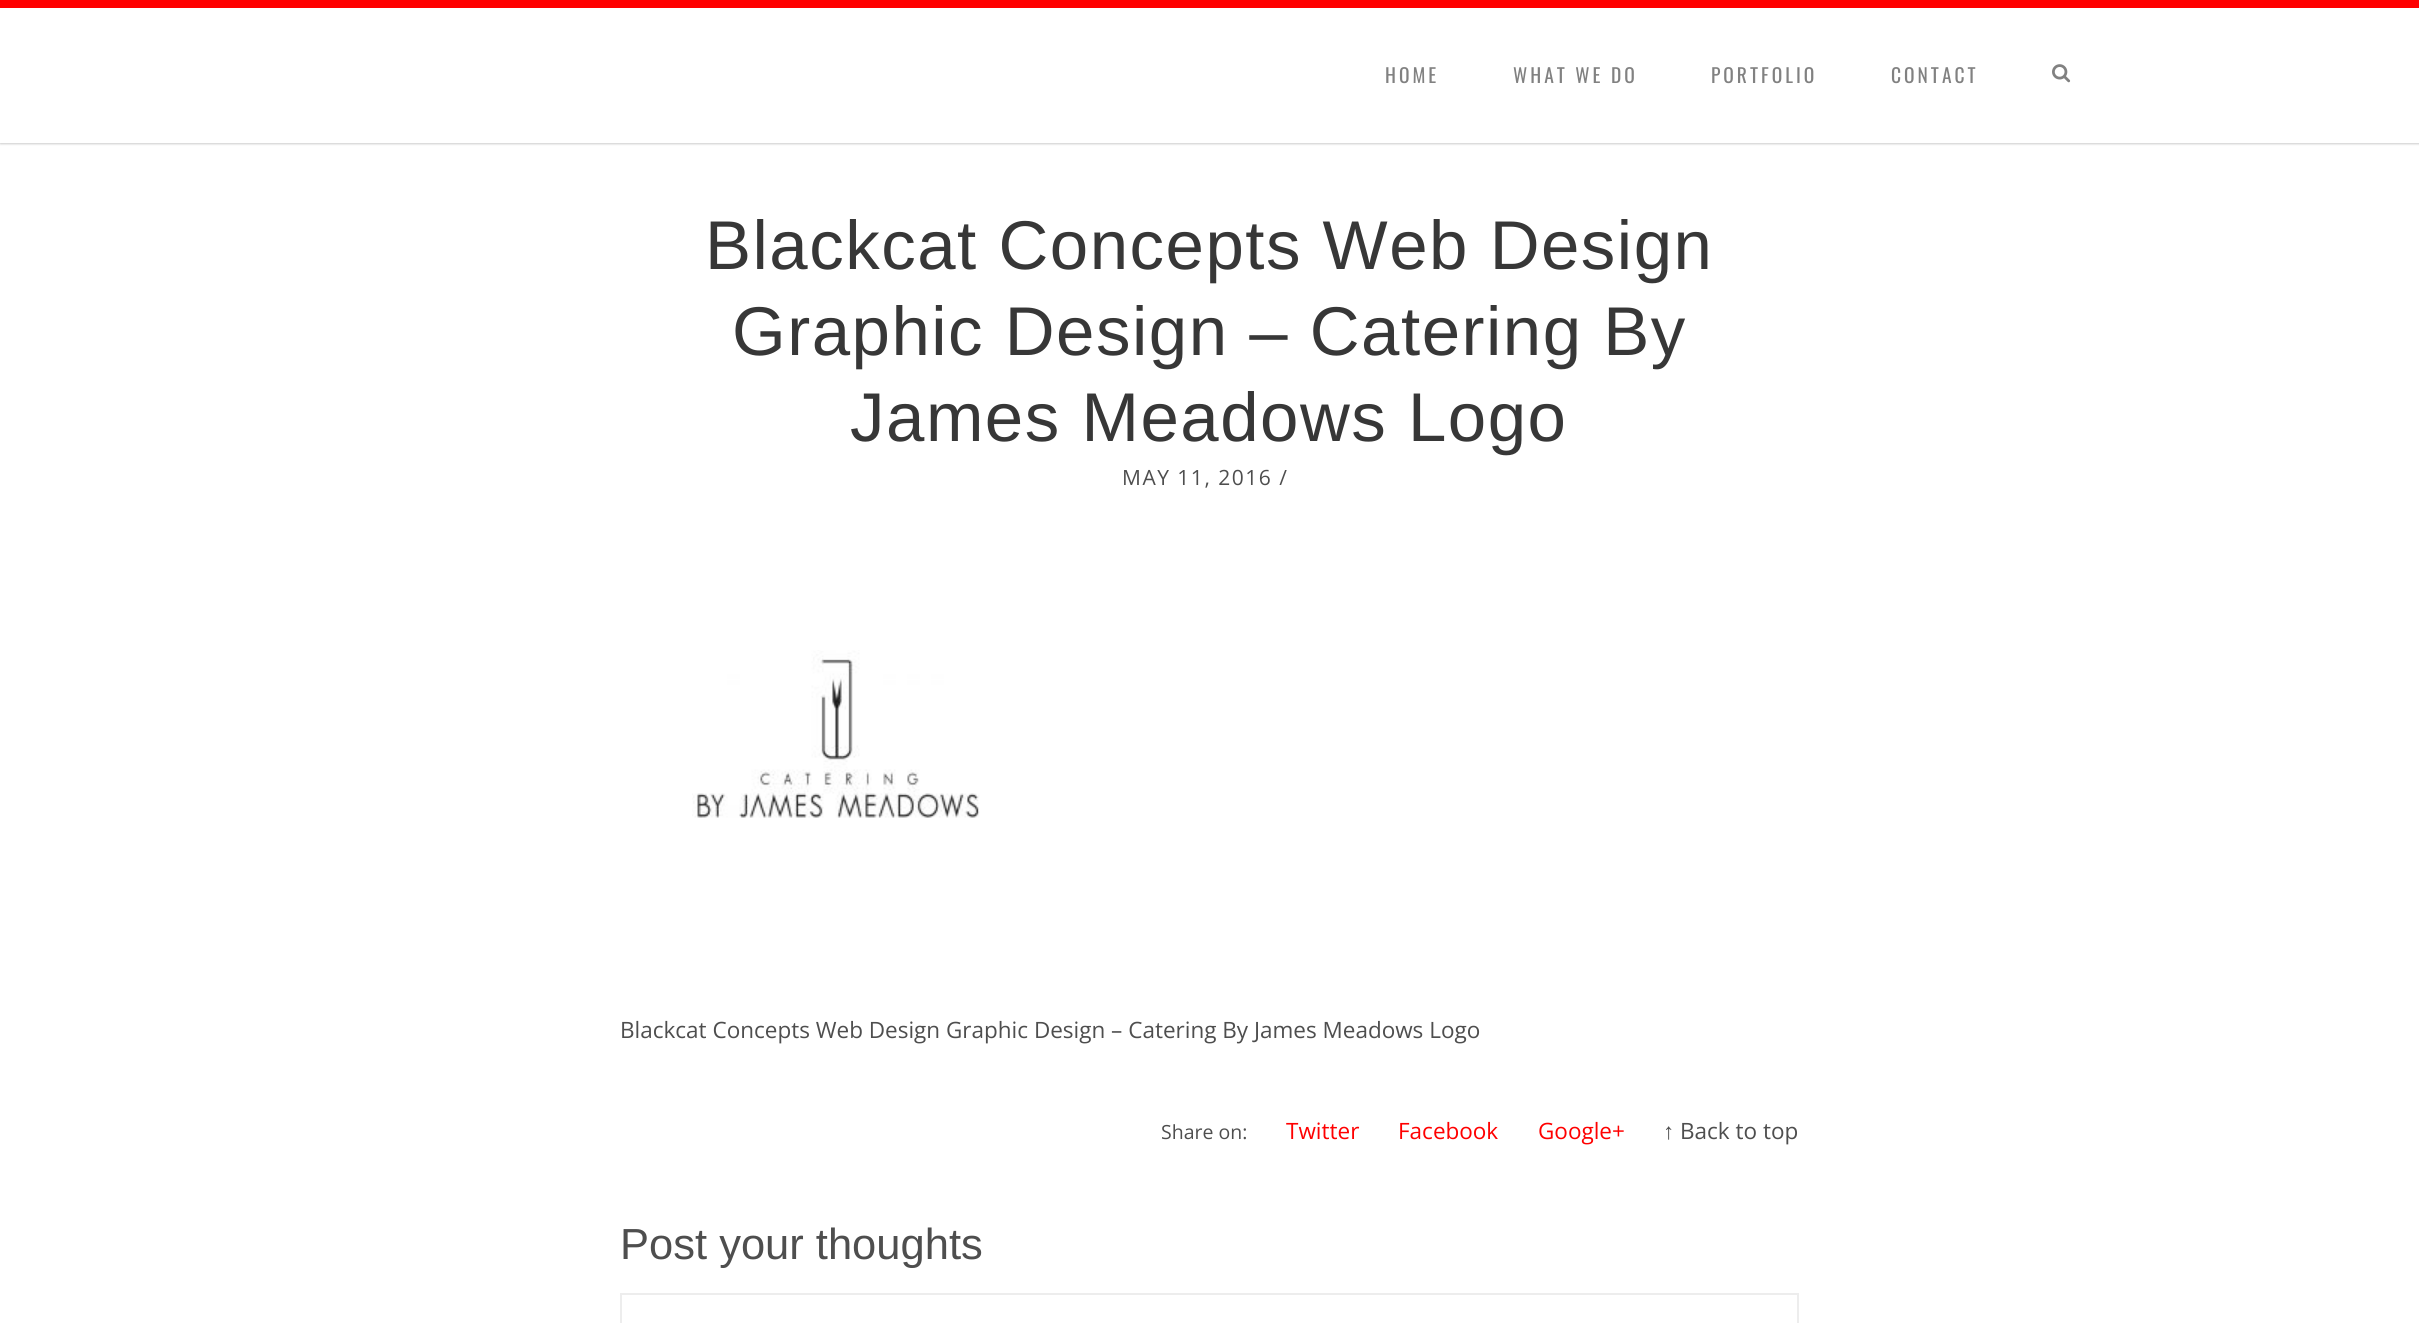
import math
import cairo

surface = cairo.ImageSurface(cairo.FORMAT_RGB24, 2419, 1323)
cr = cairo.Context(surface)
options = cairo.FontOptions()
options.set_hint_metrics(cairo.HINT_METRICS_OFF)
options.set_hint_style(cairo.HINT_STYLE_NONE)
cr.set_font_options(options)
cr.set_miter_limit(4)


def rgb(code):
    cr.set_source_rgb(*(v / 255 for v in bytes.fromhex(code[-6:])))


def tracked(x, y, s, letter, word):
    cr.move_to(x, y)
    for ch in s:
        cr.show_text(ch)
        cr.rel_move_to(letter + word * (ch == ' '), 0)


def rrect(x, y, w, h, r):
    cr.new_sub_path()
    for i, (u, v) in enumerate([(x + w - r, y + h - r), (x + r, y + h - r), (x + r, y + r), (x + w - r, y + r)]):
        cr.arc(u, v, r, i * math.pi / 2, (i + 1) * math.pi / 2)
    cr.close_path()


def soft_shadow(x, y, w, h, r, blur, alpha):
    cr.push_group_with_content(cairo.CONTENT_ALPHA)
    cr.set_operator(cairo.OPERATOR_SOURCE)
    for i in range(15, -16, -2):
        e = blur * i / 6
        if min(w, h) + 2 * e > 0:
            cr.set_source_rgba(0, 0, 0, alpha * math.erfc((i - 1) / 8.5) / 2)
            rrect(x - e, y - e, w + 2 * e, h + 2 * e, max(0, min(r + e + blur * .6, min(w, h) / 2 + e)))
            cr.fill()
    cr.mask(cr.pop_group())


def image(path, x, y, w, h):
    cr.save()
    cr.set_source_surface(cairo.ImageSurface.create_from_png(path), x, y)
    cr.rectangle(x, y, w, h)
    cr.fill()
    cr.restore()


rgb("#ffffff")
cr.paint()
rgb("#000000")
soft_shadow(0, 2, 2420, 142, 0, 1, 0.2)
rgb("#ffffff")
cr.rectangle(0, 8, 2419, 135)
cr.fill()
rgb("#ff0000")
cr.rectangle(0, 0, 2419, 8)
cr.fill()
image("img/1.png", 2052, 64, 19, 19)
image("img/2.png", 692, 650, 288, 168)
for x, y, w, h, color in [
    (620, 1293, 1179, 2, "#ededed"),
    (1797, 1293, 2, 30, "#ededed"),
    (620, 1293, 2, 30, "#ededed"),
]:
    rgb(color)
    cr.rectangle(x, y, w, h)
    cr.fill()
cr.select_font_face("Oswald")
cr.set_font_size(19.5)
rgb("#818181")
for x, y, s in [
    (1385, 83, "HOME"),
    (1513, 83, "WHAT WE DO"),
    (1711, 83, "PORTFOLIO"),
    (1891, 83, "CONTACT"),
]:
    tracked(x, y, s, 3, 0)
cr.select_font_face("Liberation Sans")
cr.set_font_size(69)
rgb("#373737")
for x, y, s in [
    (705, 269, "Blackcat Concepts Web Design"),
    (732, 355, "Graphic Design – Catering By"),
    (850, 441, "James Meadows Logo"),
]:
    tracked(x, y, s, 1.5, 0)
cr.select_font_face("Open Sans")
cr.set_font_size(21)
rgb("#4e4e4e")
tracked(1122, 485, "MAY 11, 2016 /", 1.5, 0)
cr.set_font_size(22.5)
cr.move_to(620, 1038)
cr.show_text("Blackcat Concepts Web Design Graphic Design – Catering By James Meadows Logo")
cr.set_font_size(19.5)
cr.move_to(1161, 1139)
cr.show_text("Share on:")
cr.set_font_size(22.5)
rgb("#ff0000")
for x, y, s in [
    (1286, 1139, "Twitter"),
    (1398, 1139, "Facebook"),
    (1538, 1139, "Google+"),
]:
    cr.move_to(x, y)
    cr.show_text(s)
cr.select_font_face("Liberation Sans")
rgb("#4e4e4e")
cr.move_to(1663, 1139)
cr.show_text("↑")
cr.select_font_face("Open Sans")
cr.move_to(1680, 1139)
cr.show_text("Back to top")
cr.select_font_face("Liberation Sans")
cr.set_font_size(43.5)
cr.move_to(620, 1259)
cr.show_text("Post your thoughts")
surface.write_to_png("page.png")
